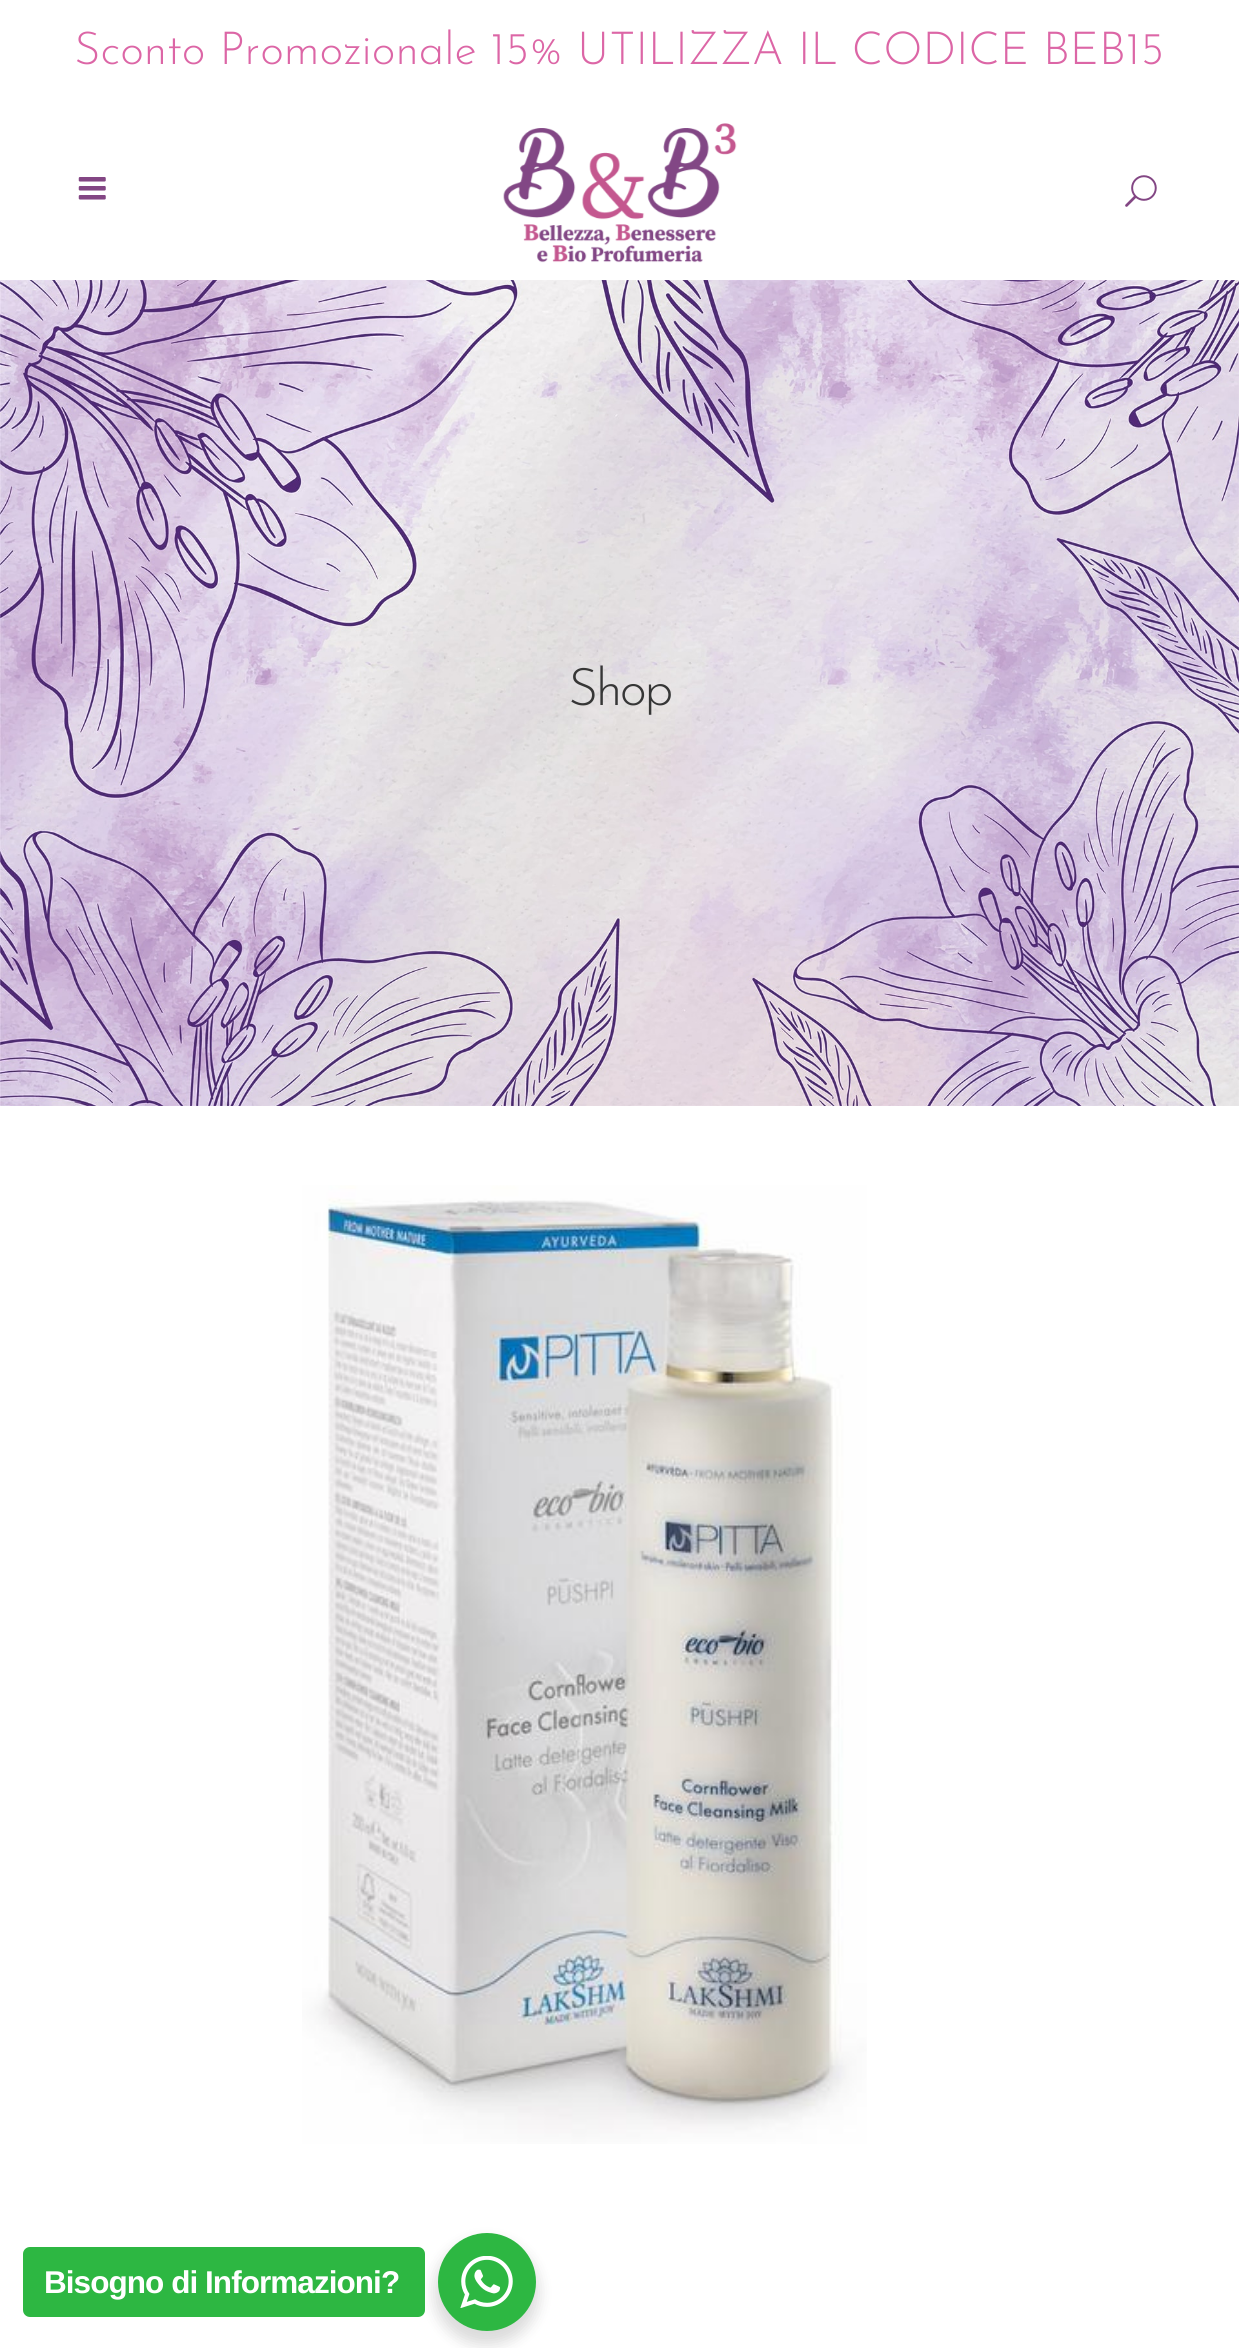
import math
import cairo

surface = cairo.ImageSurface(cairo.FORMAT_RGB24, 1239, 2348)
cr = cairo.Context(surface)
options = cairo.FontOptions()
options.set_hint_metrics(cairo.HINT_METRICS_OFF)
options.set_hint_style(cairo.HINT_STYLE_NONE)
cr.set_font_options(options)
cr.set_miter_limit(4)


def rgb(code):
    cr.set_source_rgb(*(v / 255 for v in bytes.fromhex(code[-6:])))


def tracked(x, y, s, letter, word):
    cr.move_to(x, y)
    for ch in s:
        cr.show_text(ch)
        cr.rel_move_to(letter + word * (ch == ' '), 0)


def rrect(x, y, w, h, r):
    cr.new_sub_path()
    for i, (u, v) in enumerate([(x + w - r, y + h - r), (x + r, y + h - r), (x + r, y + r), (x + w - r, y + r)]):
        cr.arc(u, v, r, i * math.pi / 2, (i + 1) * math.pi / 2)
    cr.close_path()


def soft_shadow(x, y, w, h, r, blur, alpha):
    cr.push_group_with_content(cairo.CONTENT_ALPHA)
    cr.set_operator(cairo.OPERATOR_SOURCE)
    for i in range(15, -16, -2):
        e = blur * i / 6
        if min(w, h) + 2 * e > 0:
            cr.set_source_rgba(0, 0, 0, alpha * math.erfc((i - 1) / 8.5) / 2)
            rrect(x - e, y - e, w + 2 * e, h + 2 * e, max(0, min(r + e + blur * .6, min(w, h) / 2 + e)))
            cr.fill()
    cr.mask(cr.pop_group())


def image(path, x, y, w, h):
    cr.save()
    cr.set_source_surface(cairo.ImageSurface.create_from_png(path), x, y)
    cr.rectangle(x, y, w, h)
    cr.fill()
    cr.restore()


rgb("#ffffff")
cr.paint()
image("img/1.png", 78, 177, 28, 23)
image("img/2.png", 503, 123, 234, 140)
image("img/3.png", 1125, 175, 32, 32)
image("img/4.png", 0, 280, 1239, 826)
image("img/5.png", 302, 1185, 565, 959)
rgb("#000000")
soft_shadow(434, 2240, 105, 105, 52.5, 7, 0.14)
rgb("#2db742")
rrect(23, 2247, 402, 70, 7)
cr.fill()
cr.arc(487, 2282, 49, 0, 2 * math.pi)
cr.fill()
image("img/6.png", 460, 2256, 53, 52)
cr.select_font_face("Josefin Sans Light")
cr.set_font_size(45.5)
rgb("#dc66a6")
cr.move_to(74, 64)
cr.show_text("Sconto Promozionale 15% UTILIZZA IL CODICE BEB15")
cr.set_font_size(52)
rgb("#363636")
tracked(568, 705, "Shop", -2.5, 0)
cr.select_font_face("Liberation Sans", cairo.FONT_SLANT_NORMAL, cairo.FONT_WEIGHT_BOLD)
cr.set_font_size(31.5)
rgb("#ffffff")
tracked(44, 2293, "Bisogno di Informazioni?", -0.95, 0)
surface.write_to_png("page.png")
